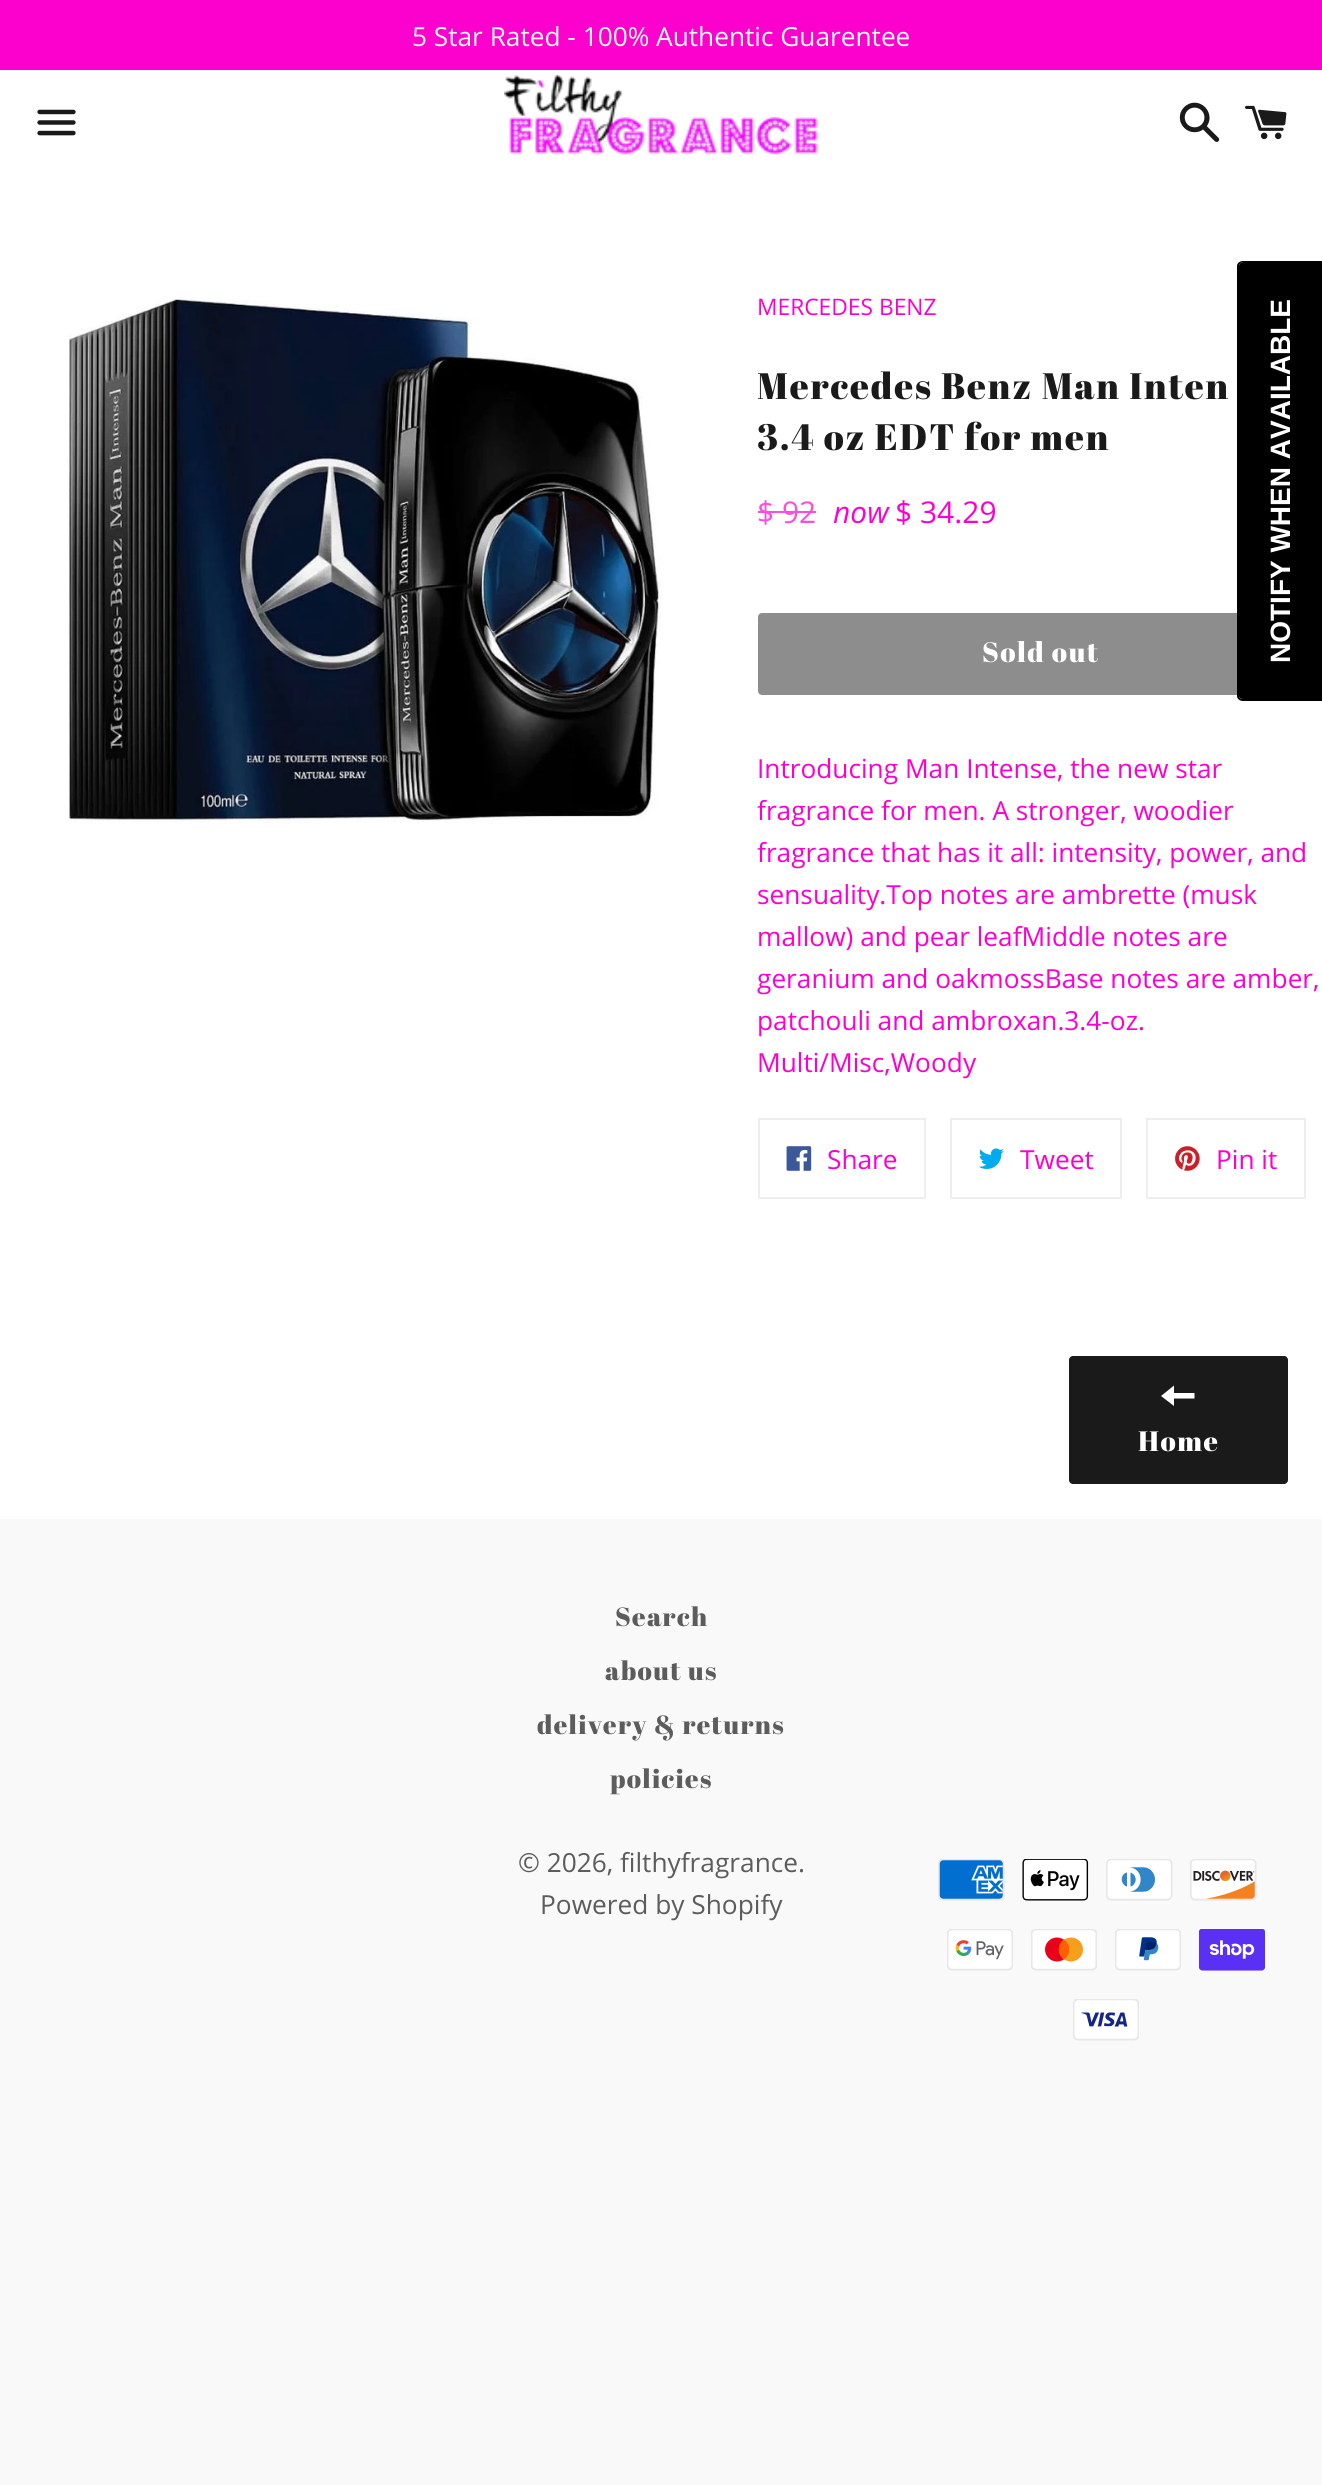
import math
import cairo

surface = cairo.ImageSurface(cairo.FORMAT_RGB24, 1322, 2485)
cr = cairo.Context(surface)
options = cairo.FontOptions()
options.set_hint_metrics(cairo.HINT_METRICS_OFF)
options.set_hint_style(cairo.HINT_STYLE_NONE)
cr.set_font_options(options)
cr.set_miter_limit(4)


def rgb(code):
    cr.set_source_rgb(*(v / 255 for v in bytes.fromhex(code[-6:])))


def tracked(x, y, s, letter, word):
    cr.move_to(x, y)
    for ch in s:
        cr.show_text(ch)
        cr.rel_move_to(letter + word * (ch == ' '), 0)


def rrect(x, y, w, h, r):
    cr.new_sub_path()
    for i, (u, v) in enumerate([(x + w - r, y + h - r), (x + r, y + h - r), (x + r, y + r), (x + w - r, y + r)]):
        cr.arc(u, v, r, i * math.pi / 2, (i + 1) * math.pi / 2)
    cr.close_path()


def image(path, x, y, w, h):
    cr.save()
    cr.set_source_surface(cairo.ImageSurface.create_from_png(path), x, y)
    cr.rectangle(x, y, w, h)
    cr.fill()
    cr.restore()


rgb("#f9f9f9")
cr.paint()
rgb("#ffffff")
cr.rectangle(0, 70, 1322, 1449)
cr.fill()
rgb("#fc00ce")
cr.rectangle(0, 0, 1322, 70)
cr.fill()
image("img/1.png", 37, 109, 39, 27)
image("img/2.png", 504, 74, 314, 81)
image("img/3.png", 1179, 102, 41, 40)
image("img/4.png", 1245, 105, 42, 35)
image("img/5.png", 67, 297, 595, 527)
rgb("#fd4ddd")
cr.rectangle(758, 511, 58, 2)
cr.fill()
rgb("#8d8d8d")
rrect(760, 615, 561, 78, 2)
cr.fill_preserve()
cr.set_line_width(4)
cr.stroke()
cr.rectangle(759, 1119, 166, 79)
rgb("#eeeeee")
cr.set_line_width(2)
cr.stroke()
image("img/6.png", 786, 1146, 26, 25)
cr.rectangle(951, 1119, 170, 79)
cr.stroke()
image("img/7.png", 978, 1148, 26, 21)
cr.rectangle(1147, 1119, 158, 79)
cr.stroke()
image("img/8.png", 1175, 1146, 25, 25)
rgb("#1a1a1a")
rrect(1069, 1356, 219, 128, 4)
cr.fill()
rgb("#ffffff")
cr.new_path()
cr.move_to(1174, 1393)
cr.line_to(1174, 1385.5)
cr.line_to(1161, 1396)
cr.line_to(1174, 1406)
cr.line_to(1174, 1398.5)
cr.line_to(1194.5, 1398.5)
cr.line_to(1194.5, 1393)
cr.close_path()
cr.fill()
rgb("#000000")
cr.new_path()
cr.move_to(1239, 696)
cr.line_to(1239, 266)
cr.curve_to(1239, 264, 1241, 262, 1243, 262)
cr.line_to(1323, 262)
cr.line_to(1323, 699)
cr.line_to(1243, 699)
cr.curve_to(1241, 699, 1239, 698, 1239, 696)
cr.close_path()
cr.fill()
cr.set_fill_rule(cairo.FILL_RULE_EVEN_ODD)
cr.new_path()
cr.move_to(1237, 696)
cr.line_to(1237, 266)
cr.curve_to(1237, 263, 1240, 261, 1243, 261)
cr.line_to(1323, 261)
cr.line_to(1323, 701)
cr.line_to(1243, 701)
cr.curve_to(1240, 701, 1237, 699, 1237, 696)
cr.close_path()
cr.move_to(1239, 696)
cr.line_to(1239, 266)
cr.curve_to(1239, 264, 1241, 262, 1243, 262)
cr.line_to(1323, 262)
cr.line_to(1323, 699)
cr.line_to(1243, 699)
cr.curve_to(1241, 699, 1239, 698, 1239, 696)
cr.close_path()
cr.fill()
image("img/9.png", 938, 1859, 67, 42)
image("img/10.png", 1022, 1859, 67, 42)
image("img/11.png", 1106, 1859, 67, 42)
image("img/12.png", 1190, 1859, 67, 42)
image("img/13.png", 947, 1929, 66, 42)
image("img/14.png", 1031, 1929, 66, 42)
image("img/15.png", 1115, 1929, 66, 42)
image("img/16.png", 1199, 1929, 66, 42)
image("img/17.png", 1073, 1999, 66, 42)
cr.select_font_face("Open Sans")
cr.set_font_size(26.25)
rgb("#ffffff")
cr.move_to(412, 46)
cr.show_text("5 Star Rated - 100% Authentic Guarentee")
cr.set_font_size(22.75)
rgb("#fc00ce")
cr.move_to(757, 315)
cr.show_text("MERCEDES BENZ")
cr.select_font_face("Abril Fatface")
cr.set_font_size(36.75)
rgb("#1a1a1a")
tracked(757, 399, "Mercedes Benz Man Inten", 1.8, 0)
tracked(757, 450, "3.4 oz EDT for men", 1.8, 0)
cr.select_font_face("Open Sans")
cr.set_font_size(30)
rgb("#fd4ddd")
cr.move_to(757, 523)
cr.show_text("$ 92")
cr.select_font_face("Open Sans", cairo.FONT_SLANT_ITALIC)
rgb("#fc00ce")
cr.move_to(833, 523)
cr.show_text("now")
cr.select_font_face("Open Sans")
cr.move_to(895, 523)
cr.show_text("$ 34.29")
cr.select_font_face("Abril Fatface")
cr.set_font_size(28)
rgb("#ffffff")
tracked(982, 662, "Sold out", 1.5, 0)
cr.select_font_face("Open Sans")
cr.set_font_size(26.25)
rgb("#fc00ce")
for x, y, s in [
    (757, 778, "Introducing Man Intense, the new star"),
    (757, 820, "fragrance for men. A stronger, woodier"),
    (757, 862, "fragrance that has it all: intensity, power, and"),
    (757, 904, "sensuality.Top notes are ambrette (musk"),
    (757, 946, "mallow) and pear leafMiddle notes are"),
    (757, 988, "geranium and oakmossBase notes are amber,"),
    (757, 1030, "patchouli and ambroxan.3.4-oz."),
    (757, 1072, "Multi/Misc,Woody"),
    (827, 1169, "Share"),
    (1020, 1169, "Tweet"),
    (1216, 1169, "Pin it"),
]:
    cr.move_to(x, y)
    cr.show_text(s)
cr.select_font_face("Abril Fatface")
cr.set_font_size(28)
rgb("#ffffff")
tracked(1138, 1451, "Home", 1.5, 0)
cr.select_font_face("Liberation Sans", cairo.FONT_SLANT_NORMAL, cairo.FONT_WEIGHT_BOLD)
cr.save()
cr.translate(1290, 663)
cr.rotate(-90 * math.pi / 180)
cr.move_to(0, 0)
cr.show_text("NOTIFY WHEN AVAILABLE")
cr.restore()
cr.select_font_face("Abril Fatface")
cr.set_font_size(26.25)
rgb("#5c5c5c")
for x, y, s in [
    (615, 1626, "Search"),
    (605, 1680, "about us"),
    (537, 1734, "delivery & returns"),
    (610, 1788, "policies"),
]:
    tracked(x, y, s, 1.3, 0)
cr.select_font_face("Open Sans")
cr.move_to(518, 1872)
cr.show_text("© 2026, filthyfragrance.")
cr.move_to(540, 1914)
cr.show_text("Powered by Shopify")
surface.write_to_png("page.png")
